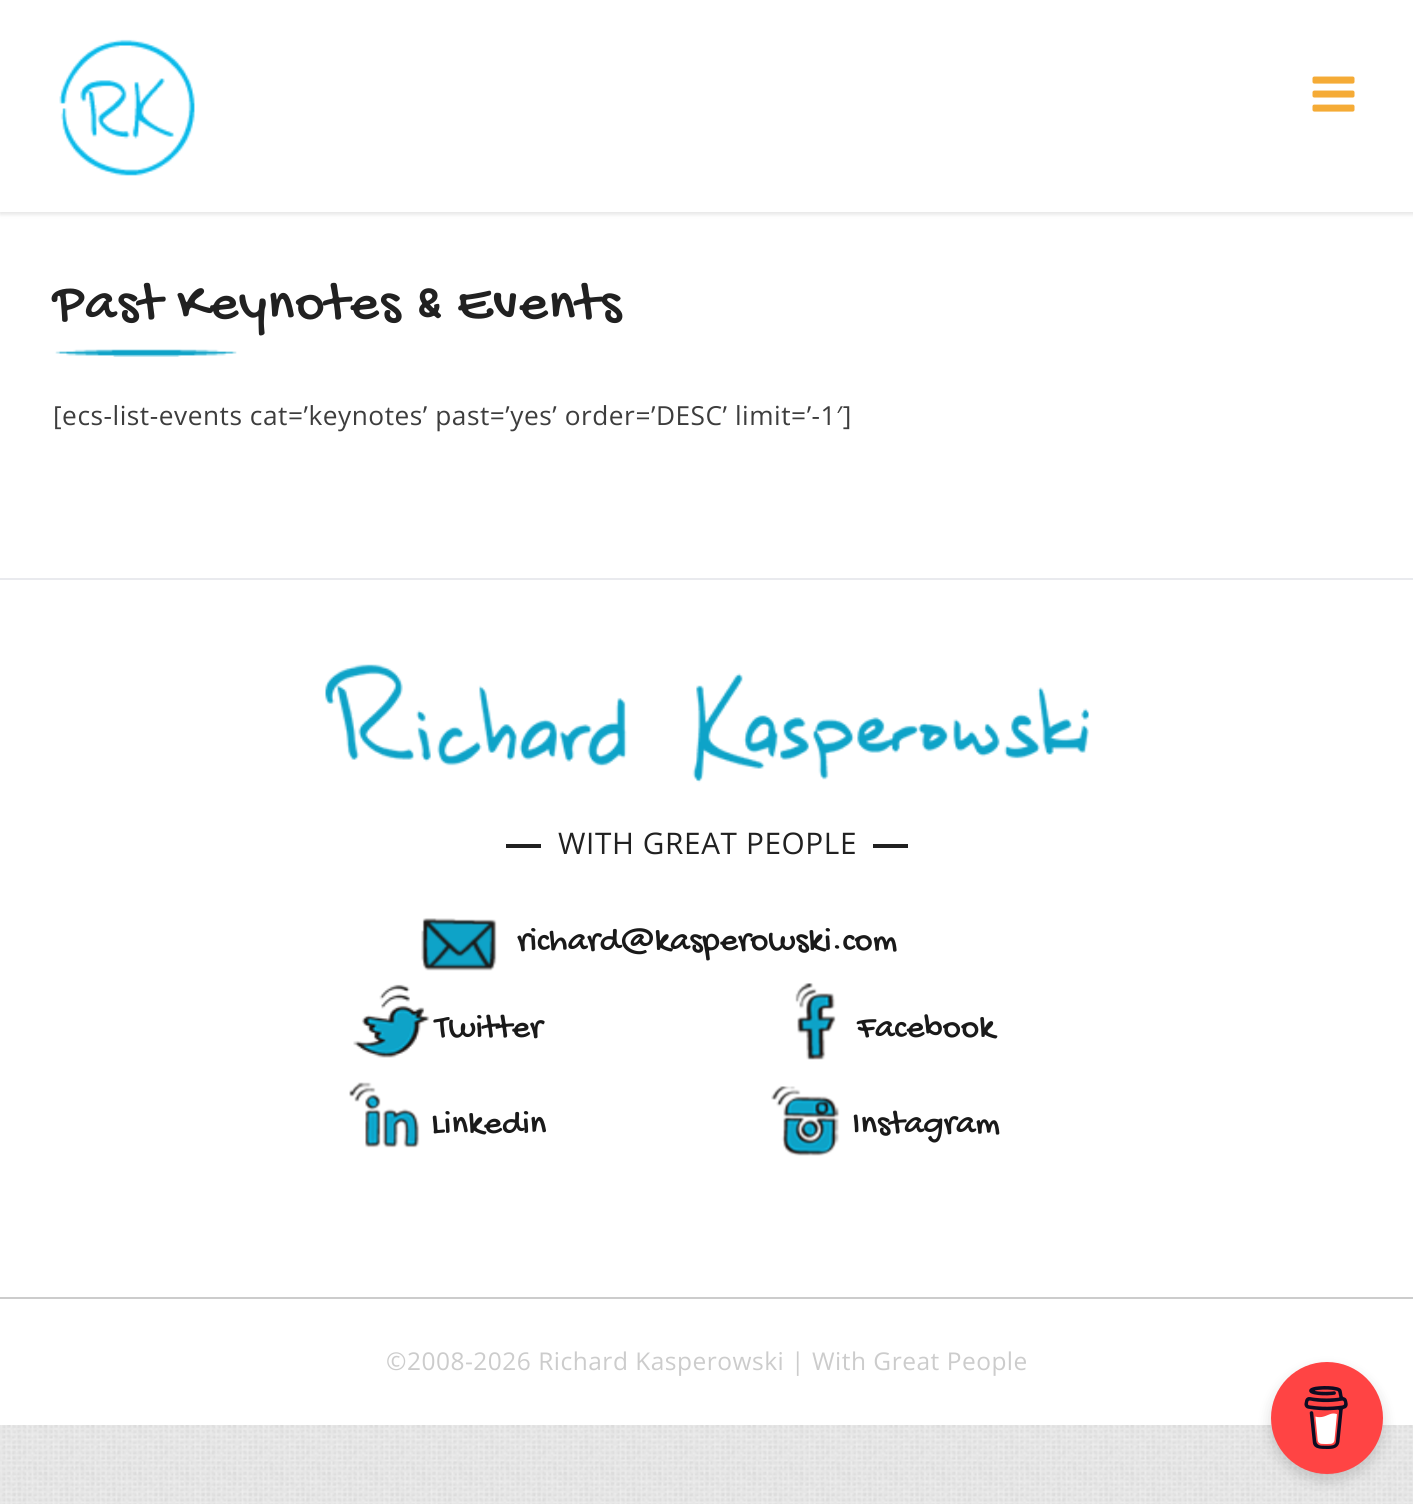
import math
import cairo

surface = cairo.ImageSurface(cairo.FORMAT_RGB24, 1413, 1504)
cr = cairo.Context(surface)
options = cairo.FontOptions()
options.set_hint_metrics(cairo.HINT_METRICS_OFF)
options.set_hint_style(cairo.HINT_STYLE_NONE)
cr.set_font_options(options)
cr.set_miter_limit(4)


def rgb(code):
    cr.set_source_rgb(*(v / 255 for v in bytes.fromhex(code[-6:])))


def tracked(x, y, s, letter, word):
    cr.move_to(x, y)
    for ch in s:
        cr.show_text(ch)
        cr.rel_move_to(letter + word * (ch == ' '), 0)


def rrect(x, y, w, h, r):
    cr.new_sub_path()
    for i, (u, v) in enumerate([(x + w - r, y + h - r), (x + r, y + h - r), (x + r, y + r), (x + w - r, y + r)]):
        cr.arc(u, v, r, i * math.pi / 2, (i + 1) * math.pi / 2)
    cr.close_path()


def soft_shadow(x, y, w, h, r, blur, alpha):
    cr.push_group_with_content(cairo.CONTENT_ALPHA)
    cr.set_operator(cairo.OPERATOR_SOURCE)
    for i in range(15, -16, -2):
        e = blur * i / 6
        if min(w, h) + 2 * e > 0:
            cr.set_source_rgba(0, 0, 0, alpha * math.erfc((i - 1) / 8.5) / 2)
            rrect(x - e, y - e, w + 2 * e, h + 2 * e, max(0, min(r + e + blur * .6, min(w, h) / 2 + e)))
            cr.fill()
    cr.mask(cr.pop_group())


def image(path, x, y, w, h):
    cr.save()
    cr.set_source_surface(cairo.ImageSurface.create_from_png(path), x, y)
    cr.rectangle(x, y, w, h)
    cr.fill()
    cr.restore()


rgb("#ffffff")
cr.paint()
image("img/1.png", 0, 1425, 1413, 79)
cr.save()
cr.set_fill_rule(cairo.FILL_RULE_EVEN_ODD)
cr.new_path()
cr.move_to(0, 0)
cr.line_to(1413, 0)
cr.line_to(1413, 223)
cr.line_to(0, 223)
cr.close_path()
cr.move_to(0, 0)
cr.line_to(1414, 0)
cr.line_to(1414, 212)
cr.line_to(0, 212)
cr.close_path()
cr.clip()
rgb("#000000")
soft_shadow(0, 2, 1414, 212, 0, 2.5, 0.12)
cr.restore()
image("img/2.png", 59, 39, 136, 137)
image("img/3.png", 1312, 76, 43, 36)
image("img/4.png", 55, 349, 182, 8)
rgb("#e9eaee")
cr.rectangle(0, 578, 1413, 2)
cr.fill()
image("img/5.png", 325, 664, 764, 119)
rgb("#212121")
cr.rectangle(506, 844, 35, 4)
cr.fill()
cr.rectangle(873, 844, 35, 4)
cr.fill()
image("img/6.png", 421, 918, 76, 53)
image("img/7.png", 353, 984, 77, 74)
image("img/8.png", 795, 983, 41, 77)
image("img/9.png", 349, 1082, 71, 66)
image("img/10.png", 771, 1086, 69, 70)
rgb("#cccccc")
cr.rectangle(0, 1297, 1413, 2)
cr.fill()
rgb("#000000")
soft_shadow(1271, 1369, 112, 112, 56, 7, 0.15)
rgb("#ff4444")
cr.arc(1327, 1418, 56, 0, 2 * math.pi)
cr.fill()
image("img/11.png", 1304, 1386, 44, 63)
cr.select_font_face("Gochi Hand")
cr.set_font_size(56)
rgb("#212121")
tracked(53, 317, "Past Keynotes & Events", 1.1, 0)
cr.select_font_face("Open Sans")
cr.set_font_size(26.25)
rgb("#3d3d3d")
tracked(53, 425, "[ecs-list-events cat=’keynotes’ past=’yes’ order=’DESC’ limit=’-1′]", 0.53, 0)
cr.set_font_size(29.75)
rgb("#212121")
tracked(558, 854, "WITH GREAT PEOPLE", 0.6, 0)
cr.select_font_face("Gochi Hand")
cr.set_font_size(35)
rgb("#1a1a1a")
for x, y, s in [
    (517, 949, "richard@kasperowski.com"),
    (435, 1036, "Twitter"),
    (857, 1036, "Facebook"),
    (431, 1132, "Linkedin"),
    (852, 1132, "Instagram"),
]:
    cr.move_to(x, y)
    cr.show_text(s)
cr.select_font_face("Open Sans")
cr.set_font_size(24.5)
rgb("#cccccc")
tracked(386, 1370, "©2008-2026 Richard Kasperowski | With Great People", 0.5, 0)
surface.write_to_png("page.png")
